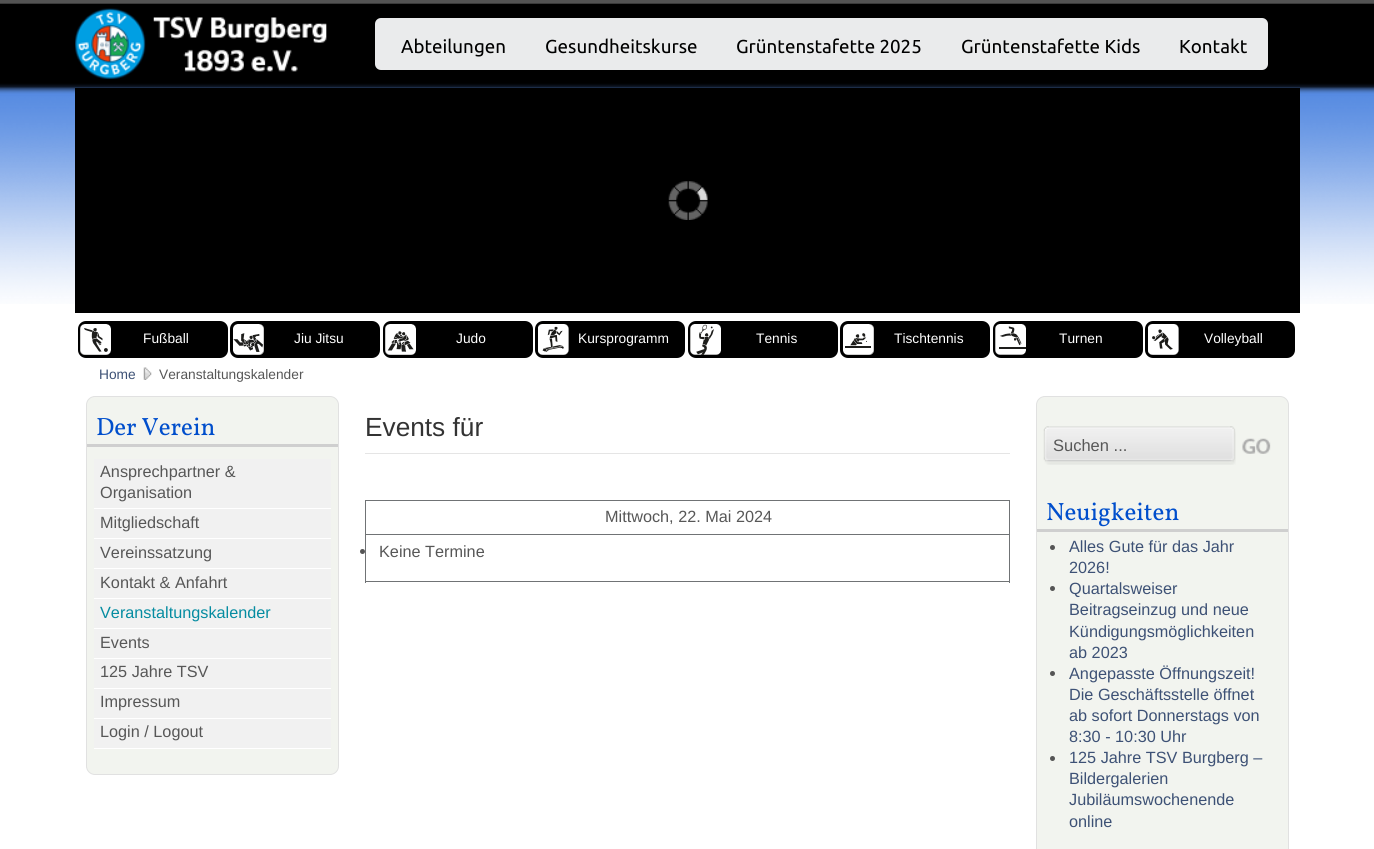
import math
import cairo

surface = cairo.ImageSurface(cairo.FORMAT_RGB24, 1374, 849)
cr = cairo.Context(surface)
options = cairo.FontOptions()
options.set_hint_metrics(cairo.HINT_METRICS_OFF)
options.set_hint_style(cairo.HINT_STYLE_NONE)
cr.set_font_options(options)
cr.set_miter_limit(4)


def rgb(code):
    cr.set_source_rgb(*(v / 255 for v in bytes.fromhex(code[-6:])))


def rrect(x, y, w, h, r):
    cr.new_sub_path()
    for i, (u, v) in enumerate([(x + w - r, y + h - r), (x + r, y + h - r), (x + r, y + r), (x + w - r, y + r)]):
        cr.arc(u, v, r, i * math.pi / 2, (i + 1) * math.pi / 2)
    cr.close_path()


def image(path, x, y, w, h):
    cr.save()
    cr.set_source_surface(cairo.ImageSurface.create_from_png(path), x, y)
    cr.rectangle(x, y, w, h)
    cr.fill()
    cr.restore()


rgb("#ffffff")
cr.paint()
image("img/1.png", 0, 0, 1374, 304)
image("img/2.png", 75, 8, 252, 71)
rgb("#eaebec")
rrect(375, 18, 893, 52, 6)
cr.fill()
rgb("#000000")
cr.rectangle(75, 88, 1225, 225)
cr.fill()
image("img/3.png", 668, 181, 40, 39)
rrect(78, 321, 150, 37, 8)
cr.fill()
image("img/4.png", 80, 324, 31, 31)
rrect(230, 321, 150, 37, 8)
cr.fill()
image("img/5.png", 233, 324, 31, 31)
rrect(383, 321, 150, 37, 8)
cr.fill()
image("img/6.png", 385, 324, 31, 31)
rrect(535, 321, 150, 37, 8)
cr.fill()
image("img/7.png", 538, 324, 31, 31)
rrect(688, 321, 150, 37, 8)
cr.fill()
image("img/8.png", 690, 324, 31, 31)
rrect(840, 321, 150, 37, 8)
cr.fill()
image("img/9.png", 843, 324, 31, 31)
rrect(993, 321, 150, 37, 8)
cr.fill()
image("img/10.png", 995, 324, 31, 31)
rrect(1145, 321, 150, 37, 8)
cr.fill()
image("img/11.png", 1148, 324, 31, 31)
image("img/12.png", 143, 367, 9, 13)
rgb("#f2f4ef")
rrect(86.5, 396.5, 252, 378, 8.5)
cr.fill_preserve()
rgb("#e1e1e1")
cr.set_line_width(1)
cr.stroke()
for x, y, w, h, color in [
    (87, 444, 251, 3, "#cfcfcf"),
    (94, 459, 237, 49, "#f1f1f1"),
    (94, 508, 237, 1, "#ffffff"),
    (94, 509, 237, 29, "#f1f1f1"),
    (94, 538, 237, 1, "#ffffff"),
    (94, 539, 237, 29, "#f1f1f1"),
    (94, 568, 237, 1, "#ffffff"),
    (94, 569, 237, 29, "#f1f1f1"),
    (94, 598, 237, 1, "#ffffff"),
    (94, 599, 237, 29, "#f1f1f1"),
    (94, 628, 237, 1, "#ffffff"),
    (94, 629, 237, 29, "#f1f1f1"),
    (94, 658, 237, 1, "#ffffff"),
    (94, 659, 237, 29, "#f1f1f1"),
    (94, 688, 237, 1, "#ffffff"),
    (94, 689, 237, 29, "#f1f1f1"),
    (94, 718, 237, 1, "#ffffff"),
    (94, 719, 237, 29, "#f1f1f1"),
    (94, 748, 237, 1, "#ffffff"),
    (365, 453, 645, 1, "#e5e5e5"),
    (365, 500, 645, 1, "#707375"),
    (365, 534, 645, 1, "#707375"),
    (1009, 534, 1, 49, "#707375"),
    (1009, 500, 1, 35, "#707375"),
    (365, 581, 645, 1, "#707375"),
    (365, 534, 1, 49, "#707375"),
    (365, 500, 1, 35, "#707375"),
]:
    rgb(color)
    cr.rectangle(x, y, w, h)
    cr.fill()
rgb("#555555")
cr.arc(362.5, 551.5, 2.5, 0, 2 * math.pi)
cr.fill()
rgb("#f2f4ef")
rrect(1036.5, 396.5, 252, 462, 8.5)
cr.fill_preserve()
rgb("#e1e1e1")
cr.stroke()
image("img/13.png", 1043, 426, 193, 39)
image("img/14.png", 1242, 438, 29, 16)
rgb("#cfcfcf")
cr.rectangle(1037, 529, 251, 3)
cr.fill()
rgb("#555555")
cr.arc(1052.5, 547.5, 2.5, 0, 2 * math.pi)
cr.fill()
cr.arc(1052.5, 588.5, 2.5, 0, 2 * math.pi)
cr.fill()
cr.arc(1052.5, 673.5, 2.5, 0, 2 * math.pi)
cr.fill()
cr.arc(1052.5, 758.5, 2.5, 0, 2 * math.pi)
cr.fill()
cr.select_font_face("Ubuntu")
cr.set_font_size(18.75)
rgb("#000000")
for x, y, s in [
    (401, 53, "Abteilungen"),
    (545, 53, "Gesundheitskurse"),
    (736, 53, "Grüntenstafette 2025"),
    (961, 53, "Grüntenstafette Kids"),
    (1179, 53, "Kontakt"),
]:
    cr.move_to(x, y)
    cr.show_text(s)
cr.select_font_face("Liberation Sans")
cr.set_font_size(13.75)
rgb("#ffffff")
for x, y, s in [
    (143, 343, "Fußball"),
    (294, 343, "Jiu Jitsu"),
    (456, 343, "Judo"),
    (578, 343, "Kursprogramm"),
    (756, 343, "Tennis"),
    (894, 343, "Tischtennis"),
    (1059, 343, "Turnen"),
    (1204, 343, "Volleyball"),
]:
    cr.move_to(x, y)
    cr.show_text(s)
rgb("#3d5175")
cr.move_to(99, 379)
cr.show_text("Home")
rgb("#575757")
cr.move_to(159, 379)
cr.show_text("Veranstaltungskalender")
cr.select_font_face("Vollkorn")
cr.set_font_size(25)
rgb("#004ecc")
cr.move_to(96, 435)
cr.show_text("Der Verein")
cr.select_font_face("Liberation Sans")
cr.set_font_size(16.25)
rgb("#575757")
for x, y, s in [
    (100, 477, "Ansprechpartner &"),
    (100, 498, "Organisation"),
    (100, 528, "Mitgliedschaft"),
    (100, 558, "Vereinssatzung"),
    (100, 588, "Kontakt & Anfahrt"),
]:
    cr.move_to(x, y)
    cr.show_text(s)
rgb("#058ca1")
cr.move_to(100, 618)
cr.show_text("Veranstaltungskalender")
rgb("#575757")
for x, y, s in [
    (100, 648, "Events"),
    (100, 677, "125 Jahre TSV"),
    (100, 707, "Impressum"),
    (100, 737, "Login / Logout"),
]:
    cr.move_to(x, y)
    cr.show_text(s)
cr.set_font_size(26.25)
rgb("#333333")
cr.move_to(365, 436)
cr.show_text("Events für")
cr.set_font_size(16.25)
rgb("#575757")
cr.move_to(605, 522)
cr.show_text("Mittwoch, 22. Mai 2024")
cr.move_to(379, 557)
cr.show_text("Keine Termine")
cr.set_font_size(16.5)
cr.move_to(1053, 451)
cr.show_text("Suchen ...")
cr.select_font_face("Vollkorn")
cr.set_font_size(25)
rgb("#004ecc")
cr.move_to(1046, 520)
cr.show_text("Neuigkeiten")
cr.select_font_face("Liberation Sans")
cr.set_font_size(16.25)
rgb("#3d5175")
for x, y, s in [
    (1069, 552, "Alles Gute für das Jahr"),
    (1069, 573, "2026!"),
    (1069, 594, "Quartalsweiser"),
    (1069, 615, "Beitragseinzug und neue"),
    (1069, 637, "Kündigungsmöglichkeiten"),
    (1069, 658, "ab 2023"),
    (1069, 679, "Angepasste Öffnungszeit!"),
    (1069, 700, "Die Geschäftsstelle öffnet"),
    (1069, 721, "ab sofort Donnerstags von"),
    (1069, 742, "8:30 - 10:30 Uhr"),
    (1069, 763, "125 Jahre TSV Burgberg –"),
    (1069, 784, "Bildergalerien"),
    (1069, 805, "Jubiläumswochenende"),
    (1069, 827, "online"),
]:
    cr.move_to(x, y)
    cr.show_text(s)
surface.write_to_png("page.png")
